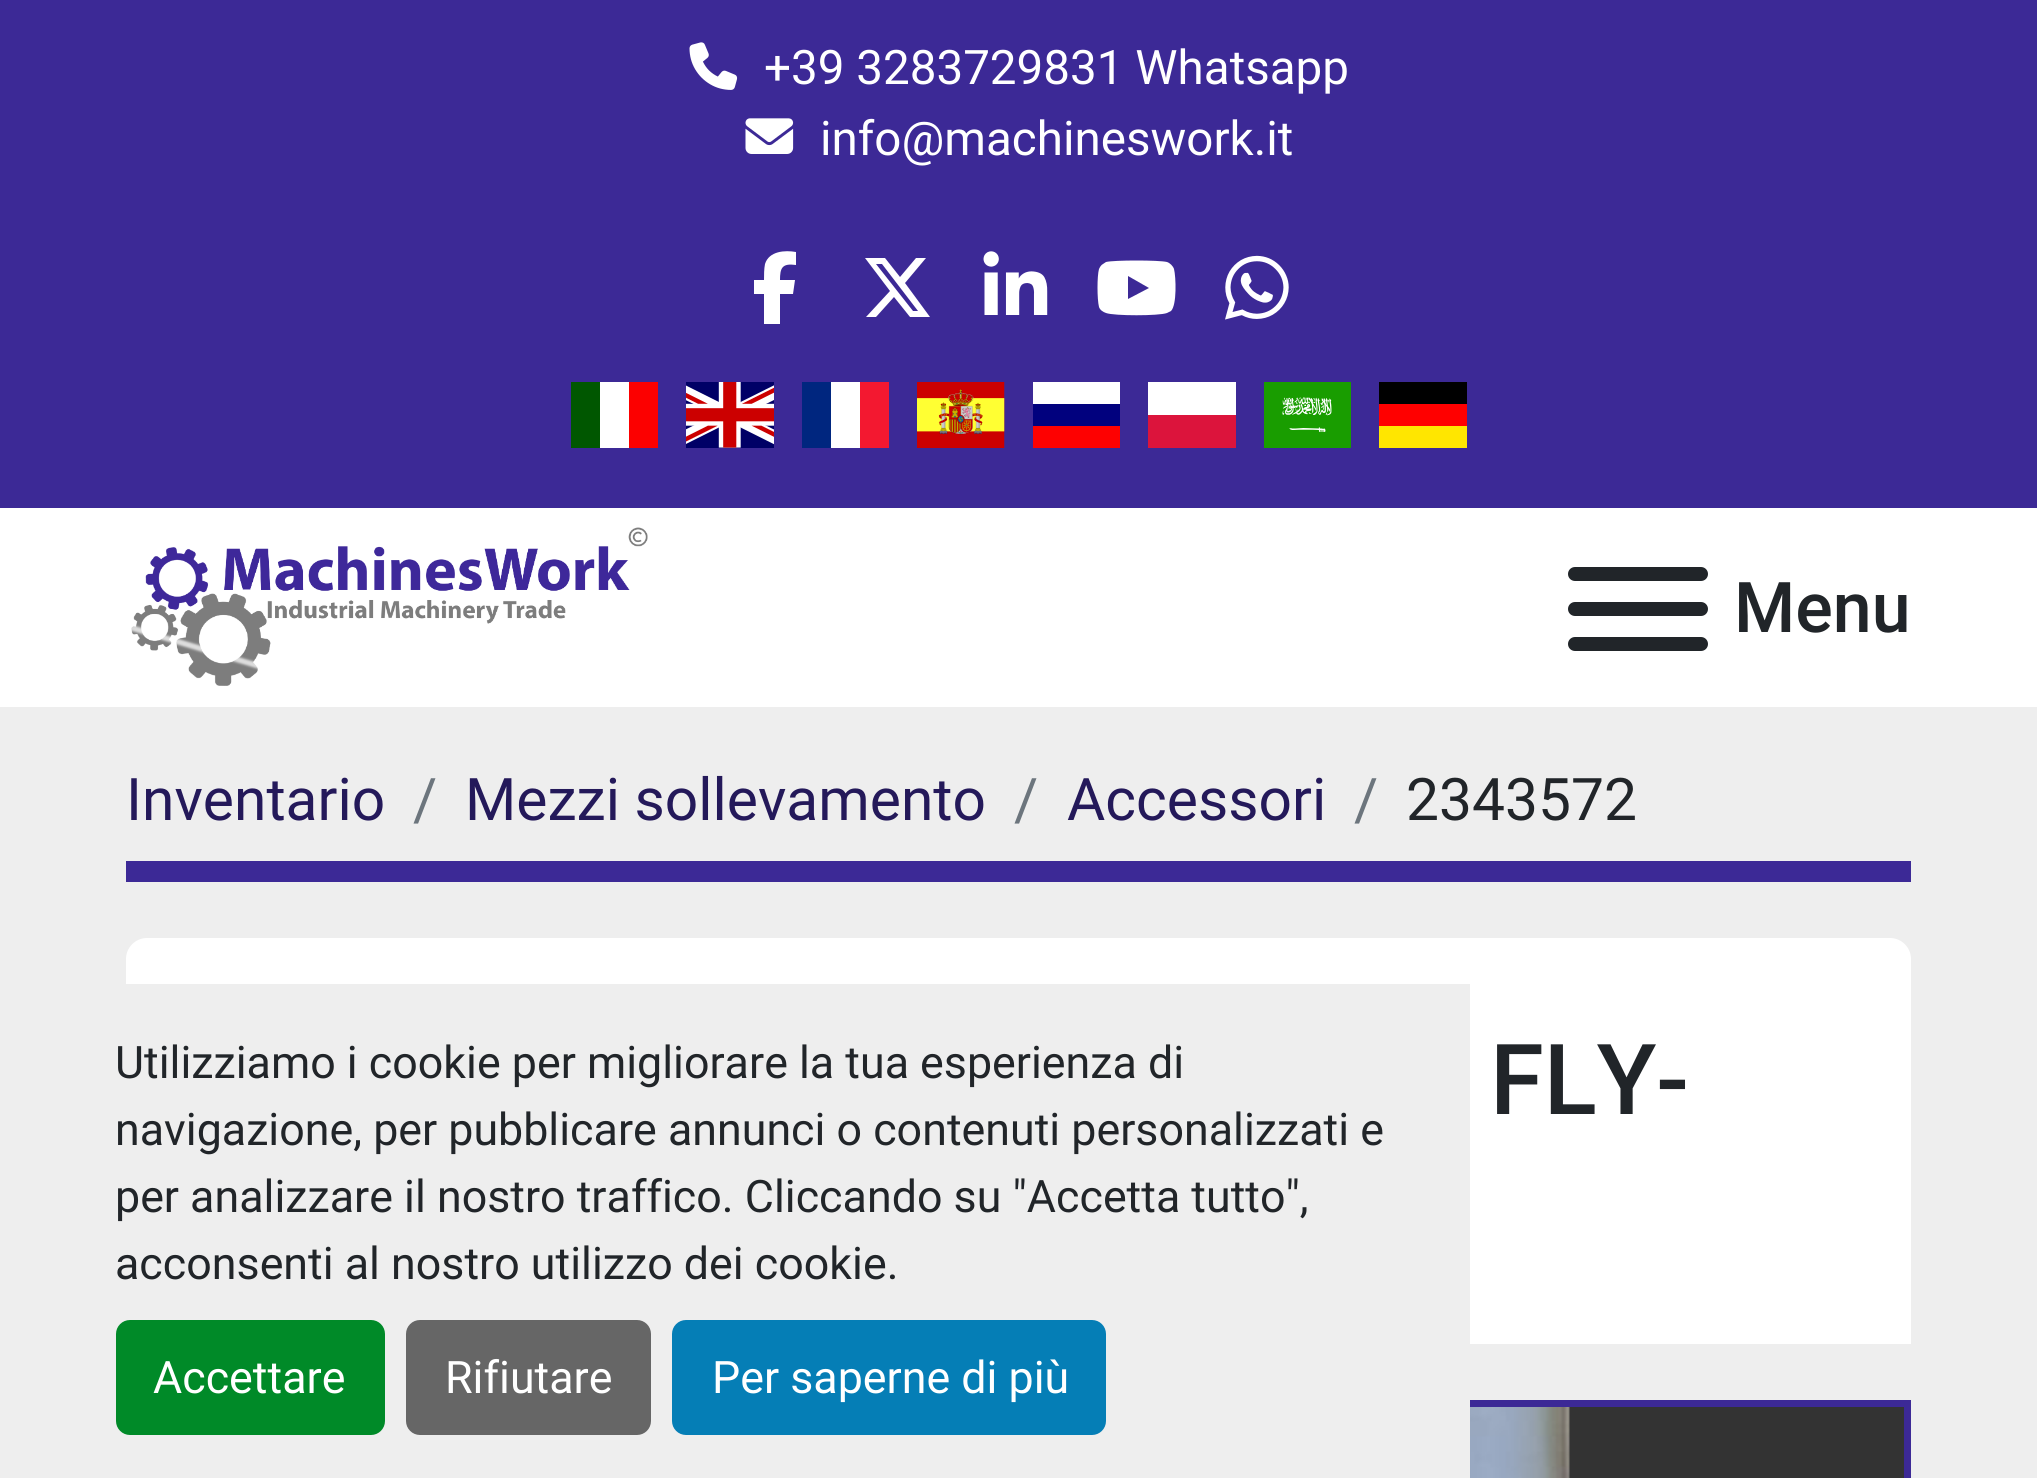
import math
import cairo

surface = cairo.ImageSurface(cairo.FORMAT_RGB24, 2037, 1478)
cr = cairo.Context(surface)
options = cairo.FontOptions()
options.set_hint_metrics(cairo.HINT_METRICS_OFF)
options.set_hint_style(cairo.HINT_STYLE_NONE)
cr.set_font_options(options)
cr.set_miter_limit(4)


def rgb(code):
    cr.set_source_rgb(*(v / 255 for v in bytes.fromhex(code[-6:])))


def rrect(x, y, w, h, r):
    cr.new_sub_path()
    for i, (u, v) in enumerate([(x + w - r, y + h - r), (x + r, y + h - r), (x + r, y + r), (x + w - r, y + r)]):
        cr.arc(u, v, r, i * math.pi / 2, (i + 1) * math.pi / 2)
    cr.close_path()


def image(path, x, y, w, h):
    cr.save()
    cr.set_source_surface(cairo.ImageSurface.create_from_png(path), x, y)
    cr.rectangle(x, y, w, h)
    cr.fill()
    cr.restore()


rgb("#eeeeee")
cr.paint()
rgb("#3c2996")
cr.rectangle(0, 0, 2037, 508)
cr.fill()
image("img/1.png", 689, 42, 49, 48)
image("img/2.png", 745, 118, 49, 36)
rgb("#ffffff")
cr.new_path()
cr.move_to(764, 294)
cr.line_to(764, 324)
cr.line_to(764, 294)
cr.line_to(764, 324)
cr.line_to(780, 324)
cr.line_to(780, 294)
cr.line_to(793, 294)
cr.line_to(795, 280)
cr.line_to(780, 280)
cr.curve_to(780, 268, 782, 263, 796, 265)
cr.line_to(796, 252)
cr.curve_to(785, 250, 769, 251, 765, 264)
cr.curve_to(764, 269, 764, 275, 764, 280)
cr.line_to(754, 280)
cr.line_to(754, 294)
cr.close_path()
cr.fill()
cr.new_path()
cr.move_to(916, 258)
cr.line_to(926, 258)
cr.line_to(916, 258)
cr.line_to(926, 258)
cr.line_to(905, 283)
cr.line_to(930, 317)
cr.line_to(910, 317)
cr.line_to(894, 297)
cr.line_to(876, 317)
cr.line_to(866, 317)
cr.line_to(890, 291)
cr.line_to(865, 258)
cr.line_to(885, 258)
cr.line_to(900, 277)
cr.close_path()
cr.move_to(913, 311)
cr.line_to(918, 311)
cr.line_to(913, 311)
cr.line_to(918, 311)
cr.line_to(882, 264)
cr.line_to(876, 264)
cr.close_path()
cr.fill()
image("img/3.png", 983, 251, 65, 64)
cr.new_path()
cr.move_to(1174, 269)
cr.curve_to(1173, 266, 1170, 263, 1167, 262)
cr.curve_to(1159, 260, 1114, 260, 1106, 262)
cr.line_to(1103, 264)
cr.curve_to(1101, 265, 1100, 267, 1099, 269)
cr.curve_to(1097, 276, 1097, 299, 1099, 307)
cr.curve_to(1100, 310, 1103, 312, 1106, 313)
cr.curve_to(1114, 316, 1159, 316, 1167, 313)
cr.line_to(1171, 311)
cr.curve_to(1177, 305, 1176, 277, 1174, 269)
cr.close_path()
cr.move_to(1128, 299)
cr.line_to(1128, 276)
cr.line_to(1128, 299)
cr.line_to(1128, 276)
cr.line_to(1149, 288)
cr.close_path()
cr.fill()
image("img/4.png", 1225, 255, 64, 65)
for x, y, w, h, color in [
    (571, 382, 29, 66, "#005700"),
    (600, 382, 29, 66, "#ffffff"),
    (629, 382, 29, 66, "#fc0000"),
]:
    rgb(color)
    cr.rectangle(x, y, w, h)
    cr.fill()
image("img/5.png", 686, 382, 88, 66)
for x, y, w, h, color in [
    (802, 382, 29, 66, "#00267f"),
    (831, 382, 29, 66, "#ffffff"),
    (860, 382, 29, 66, "#f31830"),
]:
    rgb(color)
    cr.rectangle(x, y, w, h)
    cr.fill()
image("img/6.png", 917, 382, 88, 66)
for x, y, w, h, color in [
    (1033, 382, 87, 22, "#ffffff"),
    (1033, 404, 87, 22, "#01017e"),
    (1033, 426, 87, 22, "#fe0101"),
    (1148, 382, 88, 33, "#ffffff"),
    (1148, 415, 88, 33, "#dc143c"),
]:
    rgb(color)
    cr.rectangle(x, y, w, h)
    cr.fill()
image("img/7.png", 1264, 382, 87, 66)
for x, y, w, h, color in [
    (1379, 382, 88, 22, "#000000"),
    (1379, 404, 88, 22, "#ff0000"),
    (1379, 426, 88, 22, "#ffe600"),
    (0, 508, 2037, 199, "#ffffff"),
]:
    rgb(color)
    cr.rectangle(x, y, w, h)
    cr.fill()
image("img/8.png", 131, 527, 517, 159)
rgb("#212529")
rrect(1568, 602, 140, 14, 7)
cr.fill()
rrect(1568, 567, 140, 14, 7)
cr.fill()
rrect(1568, 637, 140, 14, 7)
cr.fill()
rgb("#3c2996")
cr.rectangle(126, 861, 1785, 21)
cr.fill()
rgb("#ffffff")
cr.new_path()
cr.move_to(147, 938)
cr.line_to(1890, 938)
cr.curve_to(1901.5, 938, 1911, 947.5, 1911, 959)
cr.line_to(1911, 1344)
cr.line_to(126, 1344)
cr.line_to(126, 959)
cr.curve_to(126, 947.5, 135.5, 938, 147, 938)
cr.close_path()
cr.fill()
rgb("#333333")
cr.rectangle(1568, 1407, 336, 71)
cr.fill()
cr.rectangle(129.5, 1403.5, 1778, 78)
rgb("#3c2996")
cr.set_line_width(7)
cr.stroke()
image("img/9.png", 1470, 1407, 100, 71)
rgb("#eeeeee")
cr.rectangle(126, 984, 1344, 494)
cr.fill()
rgb("#008a28")
rrect(116, 1320, 269, 115, 14)
cr.fill()
rgb("#666666")
rrect(406, 1320, 245, 115, 14)
cr.fill()
rgb("#057eb6")
rrect(672, 1320, 434, 115, 14)
cr.fill()
cr.select_font_face("Roboto")
cr.set_font_size(47.6)
rgb("#ffffff")
cr.move_to(764, 84)
cr.show_text("+39 3283729831 Whatsapp")
cr.move_to(820, 155)
cr.show_text("info@machineswork.it")
cr.select_font_face("Roboto Medium")
cr.set_font_size(70)
rgb("#212529")
cr.move_to(1734, 632)
cr.show_text("Menu")
cr.select_font_face("Roboto")
cr.set_font_size(58.75)
rgb("#24195a")
cr.move_to(126, 820)
cr.show_text("Inventario")
rgb("#6c757d")
cr.move_to(413, 820)
cr.show_text("/")
rgb("#24195a")
cr.move_to(465, 820)
cr.show_text("Mezzi sollevamento")
rgb("#6c757d")
cr.move_to(1014, 820)
cr.show_text("/")
rgb("#24195a")
cr.move_to(1067, 820)
cr.show_text("Accessori")
rgb("#6c757d")
cr.move_to(1354, 820)
cr.show_text("/")
rgb("#212529")
cr.move_to(1406, 820)
cr.show_text("2343572")
cr.select_font_face("Roboto Medium")
cr.set_font_size(98)
cr.move_to(1490, 1114)
cr.show_text("FLY-")
cr.select_font_face("Roboto")
cr.set_font_size(44.8)
for x, y, s in [
    (115, 1078, "Utilizziamo i cookie per migliorare la tua esperienza di"),
    (115, 1145, "navigazione, per pubblicare annunci o contenuti personalizzati e"),
    (115, 1212, "per analizzare il nostro traffico. Cliccando su \"Accetta tutto\","),
    (115, 1279, "acconsenti al nostro utilizzo dei cookie."),
]:
    cr.move_to(x, y)
    cr.show_text(s)
rgb("#ffffff")
for x, y, s in [
    (153, 1393, "Accettare"),
    (445, 1393, "Rifiutare"),
    (712, 1393, "Per saperne di più"),
]:
    cr.move_to(x, y)
    cr.show_text(s)
surface.write_to_png("page.png")
